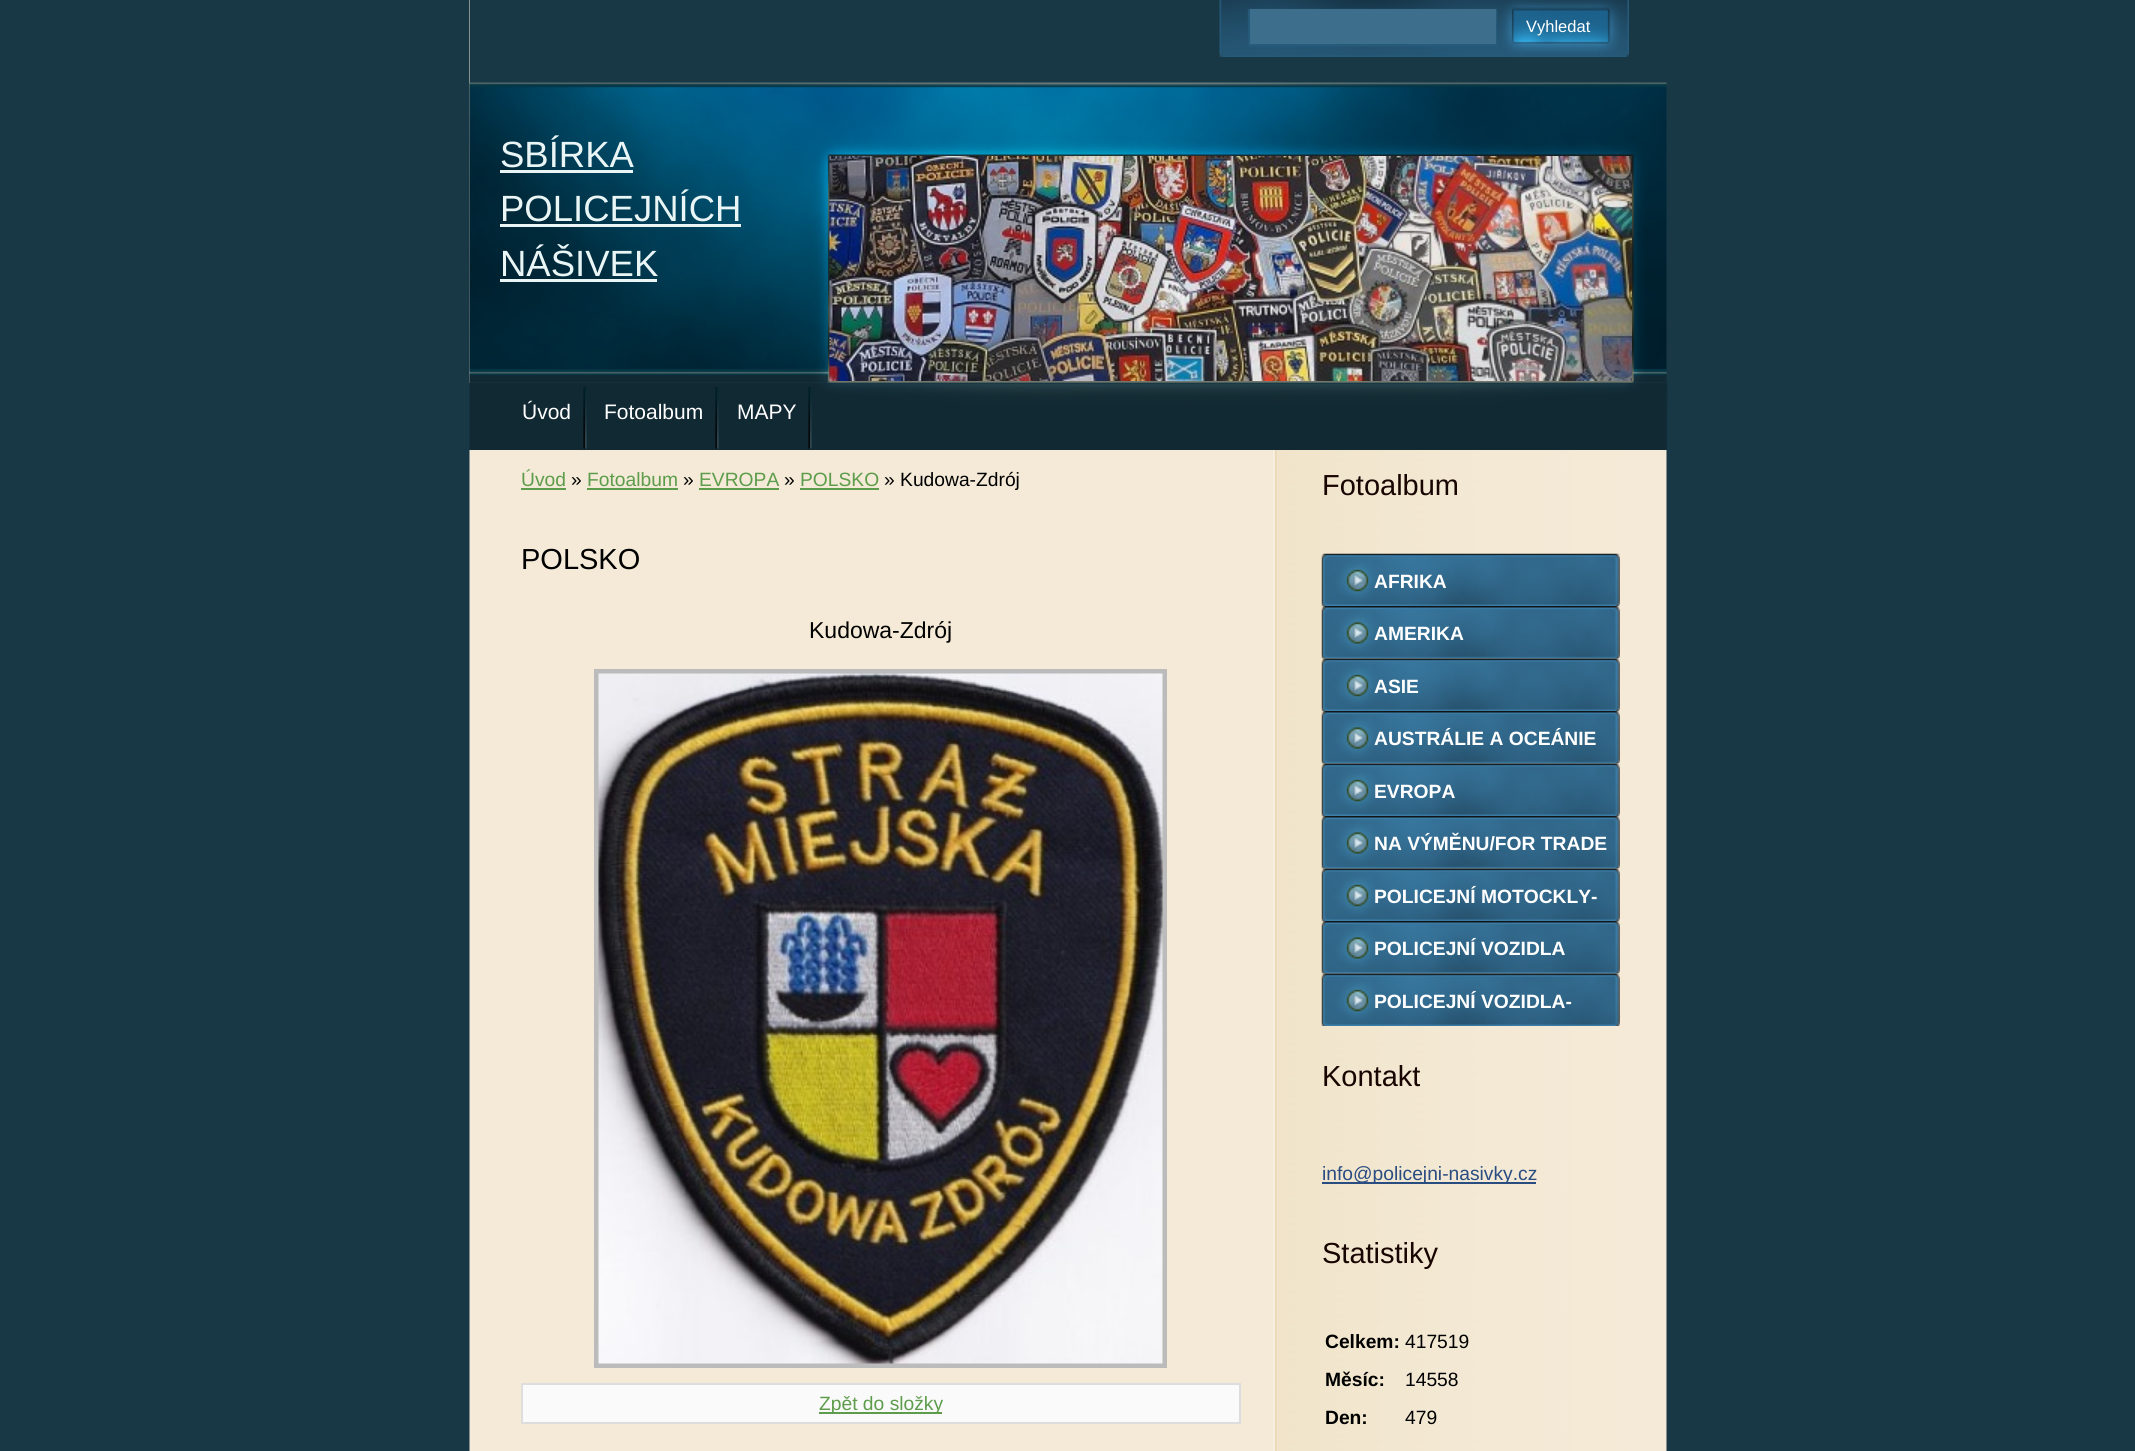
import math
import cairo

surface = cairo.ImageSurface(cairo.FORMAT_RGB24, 2135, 1451)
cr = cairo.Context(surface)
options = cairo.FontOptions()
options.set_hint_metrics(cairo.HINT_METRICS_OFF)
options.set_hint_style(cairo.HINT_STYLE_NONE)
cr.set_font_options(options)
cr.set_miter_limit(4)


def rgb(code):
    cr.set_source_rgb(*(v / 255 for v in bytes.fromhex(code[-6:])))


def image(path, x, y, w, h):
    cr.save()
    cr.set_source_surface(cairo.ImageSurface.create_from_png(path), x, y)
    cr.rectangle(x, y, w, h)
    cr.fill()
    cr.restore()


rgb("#183846")
cr.paint()
image("img/1.png", 469, 0, 1198, 1451)
image("img/2.png", 468, 382, 1200, 68)
image("img/3.png", 583, 387, 4, 62)
image("img/3.png", 715, 387, 4, 62)
image("img/3.png", 808, 387, 4, 62)
rgb("#183846")
cr.rectangle(470, 0, 1197, 383)
cr.fill()
image("img/4.png", 1219, 0, 410, 57)
rgb("#3d6f8d")
cr.rectangle(1250, 9, 246, 35)
cr.fill()
image("img/5.png", 1321, 553, 299, 53)
image("img/6.png", 1321, 606, 299, 53)
image("img/7.png", 1321, 658, 299, 53)
image("img/6.png", 1321, 711, 299, 53)
image("img/8.png", 1321, 763, 299, 53)
image("img/9.png", 1321, 816, 299, 53)
image("img/8.png", 1321, 868, 299, 53)
image("img/9.png", 1321, 921, 299, 53)
image("img/8.png", 1321, 973, 299, 53)
for x, y, w, h, color in [
    (1322, 1182, 214, 2, "#294c81"),
    (521, 488, 45, 2, "#5c9c4b"),
    (587, 488, 91, 2, "#5c9c4b"),
    (699, 488, 80, 2, "#5c9c4b"),
    (800, 488, 79, 2, "#5c9c4b"),
]:
    rgb(color)
    cr.rectangle(x, y, w, h)
    cr.fill()
cr.rectangle(596.5, 671.5, 568, 694)
rgb("#bbbbbb")
cr.set_line_width(5)
cr.stroke()
image("img/10.png", 598, 673, 565, 691)
rgb("#fafafa")
cr.rectangle(522, 1384, 718, 39)
cr.fill_preserve()
rgb("#dddddd")
cr.set_line_width(2)
cr.stroke()
rgb("#5c9c4b")
cr.rectangle(819, 1412, 123, 2)
cr.fill()
image("img/11.png", 469, 82, 1198, 301)
for x, y, w, h, color in [
    (500, 170, 133, 3, "#eaf6f6"),
    (500, 224, 241, 3, "#eaf6f6"),
    (500, 279, 157, 3, "#eaf6f6"),
]:
    rgb(color)
    cr.rectangle(x, y, w, h)
    cr.fill()
image("img/12.png", 829, 156, 803, 225)
cr.select_font_face("Liberation Sans")
cr.set_font_size(21)
rgb("#ffffff")
for x, y, s in [
    (522, 419, "Úvod"),
    (604, 419, "Fotoalbum"),
    (737, 419, "MAPY"),
]:
    cr.move_to(x, y)
    cr.show_text(s)
cr.set_font_size(16.5)
cr.move_to(1526, 32)
cr.show_text("Vyhledat")
cr.set_font_size(29)
rgb("#180400")
cr.move_to(1322, 495)
cr.show_text("Fotoalbum")
cr.select_font_face("Liberation Sans", cairo.FONT_SLANT_NORMAL, cairo.FONT_WEIGHT_BOLD)
cr.set_font_size(19.25)
rgb("#ffffff")
for x, y, s in [
    (1374, 588, "AFRIKA"),
    (1374, 640, "AMERIKA"),
    (1374, 693, "ASIE"),
    (1374, 745, "AUSTRÁLIE A OCEÁNIE"),
    (1374, 798, "EVROPA"),
    (1374, 850, "NA VÝMĚNU/FOR TRADE"),
    (1374, 903, "POLICEJNÍ MOTOCKLY-"),
    (1374, 955, "POLICEJNÍ VOZIDLA"),
    (1374, 1008, "POLICEJNÍ VOZIDLA-"),
]:
    cr.move_to(x, y)
    cr.show_text(s)
cr.select_font_face("Liberation Sans")
cr.set_font_size(29)
rgb("#180400")
cr.move_to(1322, 1086)
cr.show_text("Kontakt")
cr.set_font_size(19.25)
rgb("#294c81")
cr.move_to(1322, 1180)
cr.show_text("info@policejni-nasivky.cz")
cr.set_font_size(29)
rgb("#180400")
cr.move_to(1322, 1263)
cr.show_text("Statistiky")
cr.select_font_face("Liberation Sans", cairo.FONT_SLANT_NORMAL, cairo.FONT_WEIGHT_BOLD)
cr.set_font_size(19.25)
rgb("#000000")
cr.move_to(1325, 1348)
cr.show_text("Celkem:")
cr.select_font_face("Liberation Sans")
cr.move_to(1405, 1348)
cr.show_text("417519")
cr.select_font_face("Liberation Sans", cairo.FONT_SLANT_NORMAL, cairo.FONT_WEIGHT_BOLD)
cr.move_to(1325, 1386)
cr.show_text("Měsíc:")
cr.select_font_face("Liberation Sans")
cr.move_to(1405, 1386)
cr.show_text("14558")
cr.select_font_face("Liberation Sans", cairo.FONT_SLANT_NORMAL, cairo.FONT_WEIGHT_BOLD)
cr.move_to(1325, 1424)
cr.show_text("Den:")
cr.select_font_face("Liberation Sans")
cr.move_to(1405, 1424)
cr.show_text("479")
rgb("#5c9c4b")
cr.move_to(521, 486)
cr.show_text("Úvod")
rgb("#000000")
cr.move_to(571, 486)
cr.show_text("»")
rgb("#5c9c4b")
cr.move_to(587, 486)
cr.show_text("Fotoalbum")
rgb("#000000")
cr.move_to(683, 486)
cr.show_text("»")
rgb("#5c9c4b")
cr.move_to(699, 486)
cr.show_text("EVROPA")
rgb("#000000")
cr.move_to(784, 486)
cr.show_text("»")
rgb("#5c9c4b")
cr.move_to(800, 486)
cr.show_text("POLSKO")
rgb("#000000")
cr.move_to(884, 486)
cr.show_text("» Kudowa-Zdrój")
cr.set_font_size(29)
cr.move_to(521, 569)
cr.show_text("POLSKO")
cr.set_font_size(23)
cr.move_to(809, 638)
cr.show_text("Kudowa-Zdrój")
cr.set_font_size(19.25)
rgb("#5c9c4b")
cr.move_to(819, 1410)
cr.show_text("Zpět do složky")
cr.set_font_size(36.5)
rgb("#eaf6f6")
for x, y, s in [
    (500, 167, "SBÍRKA"),
    (500, 221, "POLICEJNÍCH"),
    (500, 276, "NÁŠIVEK"),
]:
    cr.move_to(x, y)
    cr.show_text(s)
surface.write_to_png("page.png")
